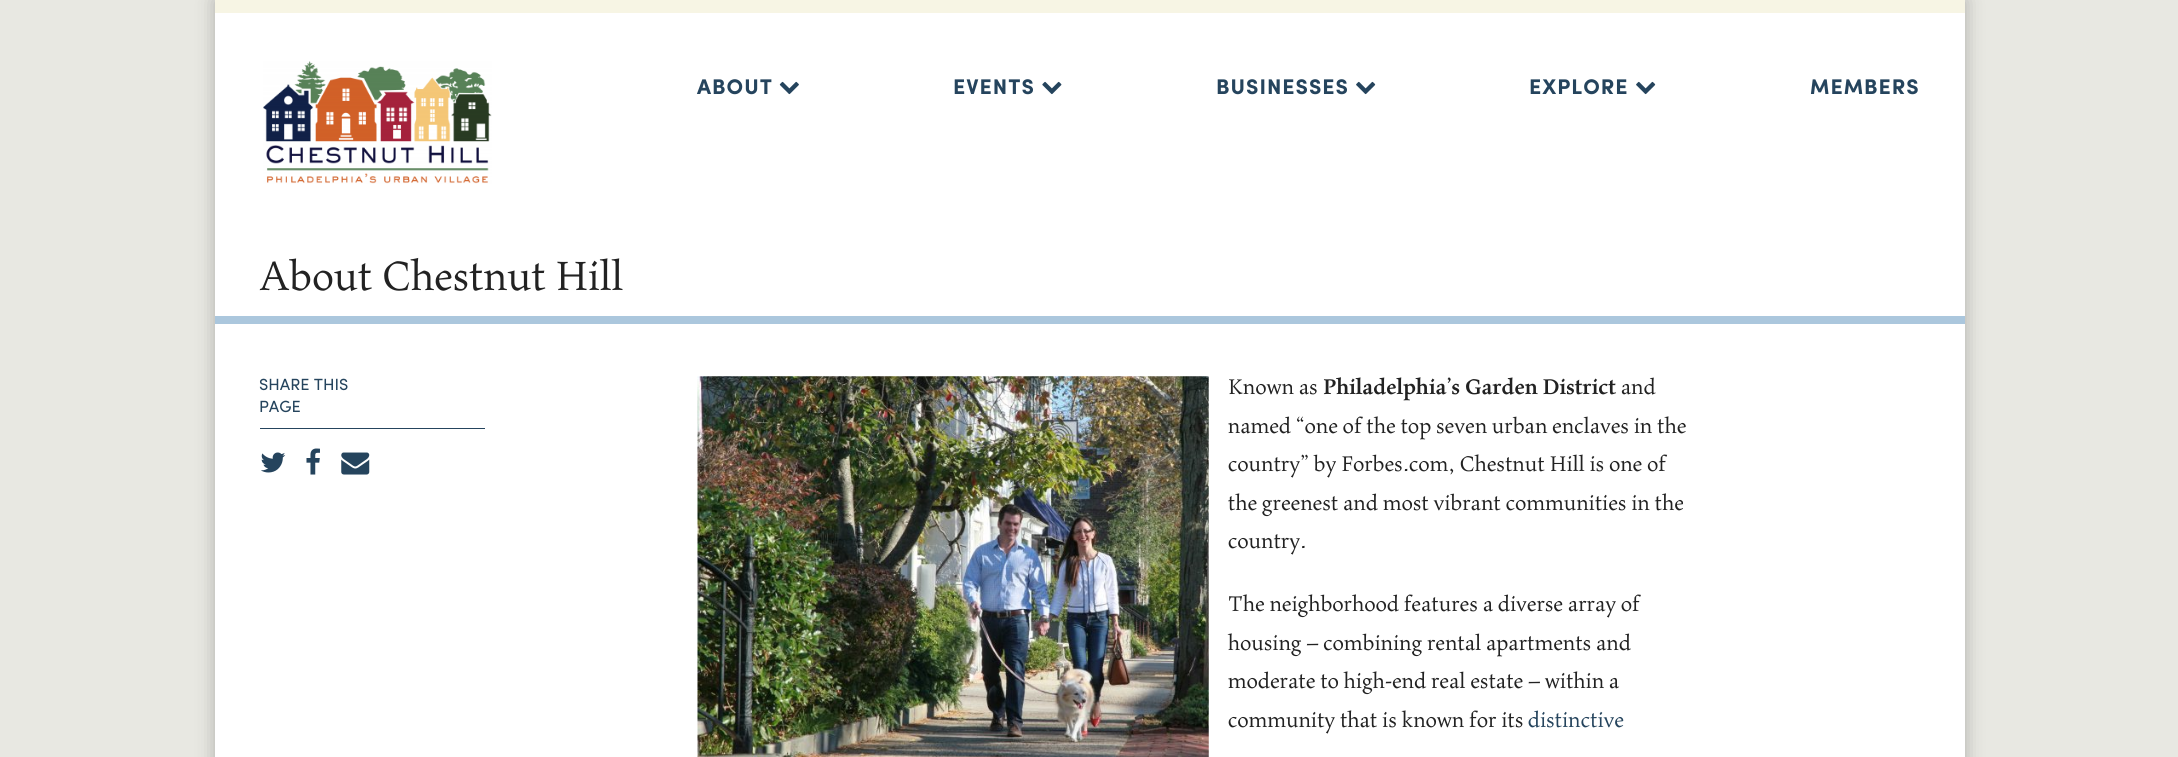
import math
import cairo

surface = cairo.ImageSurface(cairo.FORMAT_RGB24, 2178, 757)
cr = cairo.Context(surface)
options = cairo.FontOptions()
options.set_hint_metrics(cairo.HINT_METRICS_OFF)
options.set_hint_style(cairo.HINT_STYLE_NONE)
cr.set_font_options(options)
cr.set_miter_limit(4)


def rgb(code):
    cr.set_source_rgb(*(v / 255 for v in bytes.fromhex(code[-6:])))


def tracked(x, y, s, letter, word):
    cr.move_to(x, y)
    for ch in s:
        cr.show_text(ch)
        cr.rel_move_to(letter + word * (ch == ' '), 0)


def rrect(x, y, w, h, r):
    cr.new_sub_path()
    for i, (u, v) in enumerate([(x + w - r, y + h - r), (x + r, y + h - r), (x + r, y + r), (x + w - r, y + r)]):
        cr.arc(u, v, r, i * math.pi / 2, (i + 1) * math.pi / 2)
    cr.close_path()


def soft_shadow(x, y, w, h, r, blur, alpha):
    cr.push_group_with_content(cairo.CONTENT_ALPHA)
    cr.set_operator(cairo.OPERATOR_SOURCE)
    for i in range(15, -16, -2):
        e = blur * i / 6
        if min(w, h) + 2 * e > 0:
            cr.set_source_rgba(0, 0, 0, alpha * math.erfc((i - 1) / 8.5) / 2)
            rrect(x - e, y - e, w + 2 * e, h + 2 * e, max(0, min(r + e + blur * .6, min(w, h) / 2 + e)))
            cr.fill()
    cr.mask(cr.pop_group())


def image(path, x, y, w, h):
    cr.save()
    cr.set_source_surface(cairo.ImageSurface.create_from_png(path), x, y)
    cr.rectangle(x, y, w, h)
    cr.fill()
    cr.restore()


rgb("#e8e8e2")
cr.paint()
rgb("#000000")
soft_shadow(215, 0, 1750, 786, 0, 9.5, 0.25)
rgb("#ffffff")
cr.rectangle(215, 13, 1750, 744)
cr.fill()
rgb("#f7f5e4")
cr.rectangle(215, 0, 1750, 13)
cr.fill()
image("img/1.png", 263, 61, 229, 123)
image("img/2.png", 779, 81, 20, 14)
image("img/3.png", 1042, 81, 20, 14)
image("img/4.png", 1356, 81, 20, 14)
image("img/4.png", 1636, 81, 20, 14)
rgb("#abc7dd")
cr.rectangle(215, 316, 1750, 8)
cr.fill()
rgb("#25445d")
cr.rectangle(260, 428, 225, 1)
cr.fill()
image("img/5.png", 261, 452, 25, 21)
image("img/6.png", 306, 448, 14, 27)
image("img/7.png", 341, 452, 29, 23)
image("img/8.png", 697, 376, 512, 381)
cr.select_font_face("Sofia", cairo.FONT_SLANT_NORMAL, cairo.FONT_WEIGHT_BOLD)
cr.set_font_size(21.25)
for x, y, s in [
    (697, 94, "ABOUT"),
    (953, 94, "EVENTS"),
    (1216, 94, "BUSINESSES"),
    (1529, 94, "EXPLORE"),
    (1810, 94, "MEMBERS"),
]:
    tracked(x, y, s, 1, 0)
cr.select_font_face("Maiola")
cr.set_font_size(46.25)
rgb("#222222")
cr.move_to(259, 290)
cr.show_text("About Chestnut Hill")
cr.select_font_face("Sofia")
cr.set_font_size(16.25)
rgb("#25445d")
cr.move_to(259, 390)
cr.show_text("SHARE THIS")
cr.move_to(259, 412)
cr.show_text("PAGE")
cr.select_font_face("Maiola")
cr.set_font_size(24)
rgb("#222222")
cr.move_to(1228, 394)
cr.show_text("Known as")
cr.select_font_face("Maiola", cairo.FONT_SLANT_NORMAL, cairo.FONT_WEIGHT_BOLD)
cr.move_to(1323, 394)
cr.show_text("Philadelphia’s Garden District")
cr.select_font_face("Maiola")
for x, y, s in [
    (1621, 394, "and"),
    (1228, 433, "named “one of the top seven urban enclaves in the"),
    (1228, 471, "country” by Forbes.com, Chestnut Hill is one of"),
    (1228, 510, "the greenest and most vibrant communities in the"),
    (1228, 548, "country."),
    (1228, 611, "The neighborhood features a diverse array of"),
    (1228, 650, "housing – combining rental apartments and"),
    (1228, 688, "moderate to high-end real estate – within a"),
    (1228, 727, "community that is known for its"),
]:
    cr.move_to(x, y)
    cr.show_text(s)
rgb("#25445d")
cr.move_to(1528, 727)
cr.show_text("distinctive")
surface.write_to_png("page.png")
